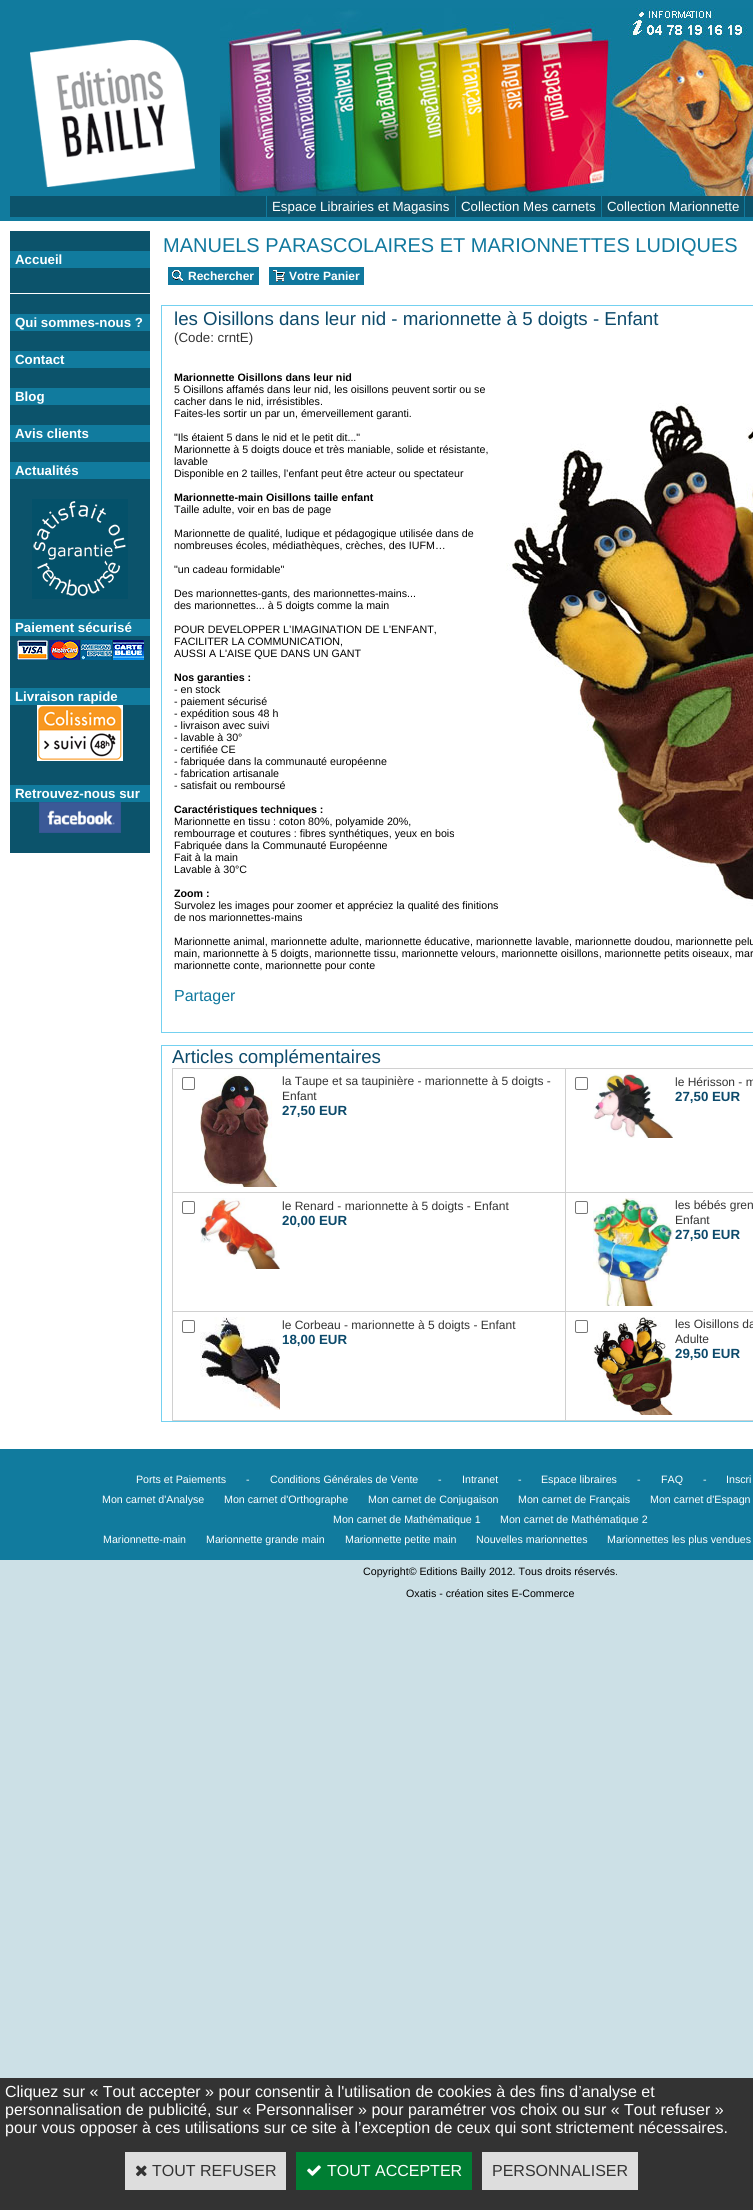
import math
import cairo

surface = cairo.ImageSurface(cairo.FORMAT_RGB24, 753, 2210)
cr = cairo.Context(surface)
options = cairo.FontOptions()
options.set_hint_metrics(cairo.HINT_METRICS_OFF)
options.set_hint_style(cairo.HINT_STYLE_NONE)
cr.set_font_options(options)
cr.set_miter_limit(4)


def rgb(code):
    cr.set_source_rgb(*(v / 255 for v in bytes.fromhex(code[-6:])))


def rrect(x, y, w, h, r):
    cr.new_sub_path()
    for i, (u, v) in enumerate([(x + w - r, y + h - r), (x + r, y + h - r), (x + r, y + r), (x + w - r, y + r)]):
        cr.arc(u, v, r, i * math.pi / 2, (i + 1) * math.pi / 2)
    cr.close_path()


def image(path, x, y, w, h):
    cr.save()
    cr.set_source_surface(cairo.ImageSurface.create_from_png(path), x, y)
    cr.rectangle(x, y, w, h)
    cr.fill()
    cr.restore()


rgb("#cce0e6")
cr.paint()
rgb("#ffffff")
cr.rectangle(0, 221, 753, 1228)
cr.fill()
rgb("#117b9e")
cr.rectangle(0, 0, 753, 221)
cr.fill()
image("img/1.png", 30, 40, 165, 147)
image("img/2.png", 220, 8, 533, 188)
for x, y, w, h, color in [
    (10, 196, 743, 21, "#0c536b"),
    (266, 196, 1, 21, "#117b9e"),
    (455, 196, 1, 21, "#117b9e"),
    (601, 196, 1, 21, "#117b9e"),
    (744, 196, 1, 21, "#117b9e"),
    (10, 231, 140, 622, "#0c536b"),
    (10, 251, 140, 17, "#117b9e"),
    (10, 293, 140, 1, "#ffffff"),
    (10, 314, 140, 17, "#117b9e"),
    (10, 351, 140, 17, "#117b9e"),
    (10, 388, 140, 17, "#117b9e"),
    (10, 425, 140, 17, "#117b9e"),
    (10, 462, 140, 17, "#117b9e"),
]:
    rgb(color)
    cr.rectangle(x, y, w, h)
    cr.fill()
image("img/3.png", 32, 499, 96, 100)
cr.rectangle(10, 619, 140, 17)
cr.fill()
image("img/4.png", 17, 640, 127, 20)
cr.rectangle(10, 688, 140, 17)
cr.fill()
image("img/5.png", 37, 705, 86, 56)
cr.rectangle(10, 785, 140, 17)
cr.fill()
image("img/6.png", 39, 802, 82, 31)
rgb("#10789e")
cr.rectangle(168, 267, 91, 18)
cr.fill()
image("img/7.png", 172, 270, 11, 12)
cr.rectangle(269, 267, 95, 18)
cr.fill()
image("img/8.png", 273, 270, 12, 12)
cr.rectangle(161.5, 305.5, 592, 727)
rgb("#74d1f0")
cr.set_line_width(1)
cr.stroke()
image("img/9.png", 506, 403, 247, 503)
cr.rectangle(161.5, 1045.5, 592, 376)
cr.stroke()
for x, y, w, h, color in [
    (172, 1068, 581, 1, "#d0d0d0"),
    (172, 1420, 581, 1, "#d0d0d0"),
    (172, 1068, 1, 353, "#d0d0d0"),
]:
    rgb(color)
    cr.rectangle(x, y, w, h)
    cr.fill()
rrect(182.5, 1077.5, 12, 12, 1.5)
rgb("#767676")
cr.stroke()
image("img/10.png", 200, 1074, 80, 113)
for x, y, w, h, color in [
    (565, 1192, 188, 1, "#d0d0d0"),
    (565, 1311, 188, 1, "#d0d0d0"),
    (565, 1311, 1, 110, "#d0d0d0"),
    (172, 1311, 394, 1, "#d0d0d0"),
    (565, 1192, 1, 120, "#d0d0d0"),
    (172, 1192, 394, 1, "#d0d0d0"),
    (565, 1068, 1, 125, "#d0d0d0"),
]:
    rgb(color)
    cr.rectangle(x, y, w, h)
    cr.fill()
rrect(575.5, 1077.5, 12, 12, 1.5)
rgb("#767676")
cr.stroke()
image("img/11.png", 593, 1074, 80, 64)
rrect(182.5, 1201.5, 12, 12, 1.5)
cr.stroke()
image("img/12.png", 200, 1198, 80, 71)
rrect(575.5, 1201.5, 12, 12, 1.5)
cr.stroke()
image("img/13.png", 593, 1198, 80, 108)
rrect(182.5, 1320.5, 12, 12, 1.5)
cr.stroke()
image("img/14.png", 200, 1317, 80, 93)
rrect(575.5, 1320.5, 12, 12, 1.5)
cr.stroke()
image("img/15.png", 593, 1317, 80, 98)
for x, y, w, h, color in [
    (0, 1449, 753, 111, "#117b9e"),
    (0, 2078, 753, 132, "#333333"),
    (125, 2152, 161, 38, "#dddddd"),
]:
    rgb(color)
    cr.rectangle(x, y, w, h)
    cr.fill()
image("img/16.png", 136, 2165, 11, 12)
rgb("#007e33")
cr.rectangle(296, 2152, 176, 38)
cr.fill()
image("img/17.png", 307, 2165, 14, 11)
rgb("#dddddd")
cr.rectangle(482, 2152, 156, 38)
cr.fill()
cr.select_font_face("Liberation Sans")
cr.set_font_size(13.3)
rgb("#ffffff")
for x, y, s in [
    (272, 211, "Espace Librairies et Magasins"),
    (461, 211, "Collection Mes carnets"),
    (607, 211, "Collection Marionnette"),
]:
    cr.move_to(x, y)
    cr.show_text(s)
cr.select_font_face("Liberation Sans", cairo.FONT_SLANT_NORMAL, cairo.FONT_WEIGHT_BOLD)
for x, y, s in [
    (15, 264, "Accueil"),
    (15, 327, "Qui sommes-nous ?"),
    (15, 364, "Contact"),
    (15, 401, "Blog"),
    (15, 438, "Avis clients"),
    (15, 475, "Actualités"),
    (15, 632, "Paiement sécurisé"),
    (15, 701, "Livraison rapide"),
    (15, 798, "Retrouvez-nous sur"),
]:
    cr.move_to(x, y)
    cr.show_text(s)
cr.select_font_face("Liberation Sans")
cr.set_font_size(20)
rgb("#10789e")
cr.move_to(163, 252)
cr.show_text("MANUELS PARASCOLAIRES ET MARIONNETTES LUDIQUES")
cr.select_font_face("Liberation Sans", cairo.FONT_SLANT_NORMAL, cairo.FONT_WEIGHT_BOLD)
cr.set_font_size(12)
rgb("#ffffff")
cr.move_to(188, 280)
cr.show_text("Rechercher")
cr.move_to(289, 280)
cr.show_text("Votre Panier")
cr.select_font_face("Liberation Sans")
cr.set_font_size(18.7)
rgb("#0c4a6b")
cr.move_to(174, 325)
cr.show_text("les Oisillons dans leur nid - marionnette à 5 doigts - Enfant")
cr.set_font_size(13.3)
rgb("#333333")
cr.move_to(174, 342)
cr.show_text("(Code: crntE)")
cr.select_font_face("Liberation Sans", cairo.FONT_SLANT_NORMAL, cairo.FONT_WEIGHT_BOLD)
cr.set_font_size(10.67)
rgb("#000000")
cr.move_to(174, 381)
cr.show_text("Marionnette Oisillons dans leur nid")
cr.select_font_face("Liberation Sans")
for x, y, s in [
    (174, 393, "5 Oisillons affamés dans leur nid, les oisillons peuvent sortir ou se"),
    (174, 405, "cacher dans le nid, irrésistibles."),
    (174, 417, "Faites-les sortir un par un, émerveillement garanti."),
    (174, 441, "\"Ils étaient 5 dans le nid et le petit dit...\""),
    (174, 453, "Marionnette à 5 doigts douce et très maniable, solide et résistante,"),
    (174, 465, "lavable"),
    (174, 477, "Disponible en 2 tailles, l’enfant peut être acteur ou spectateur"),
]:
    cr.move_to(x, y)
    cr.show_text(s)
cr.select_font_face("Liberation Sans", cairo.FONT_SLANT_NORMAL, cairo.FONT_WEIGHT_BOLD)
cr.move_to(174, 501)
cr.show_text("Marionnette-main Oisillons taille enfant")
cr.select_font_face("Liberation Sans")
for x, y, s in [
    (174, 513, "Taille adulte, voir en bas de page"),
    (174, 537, "Marionnette de qualité, ludique et pédagogique utilisée dans de"),
    (174, 549, "nombreuses écoles, médiathèques, crèches, des IUFM…"),
    (174, 573, "\"un cadeau formidable\""),
    (174, 597, "Des marionnettes-gants, des marionnettes-mains..."),
    (174, 609, "des marionnettes... à 5 doigts comme la main"),
    (174, 633, "POUR DEVELOPPER L’IMAGINATION DE L’ENFANT,"),
    (174, 645, "FACILITER LA COMMUNICATION,"),
    (174, 657, "AUSSI A L'AISE QUE DANS UN GANT"),
]:
    cr.move_to(x, y)
    cr.show_text(s)
cr.select_font_face("Liberation Sans", cairo.FONT_SLANT_NORMAL, cairo.FONT_WEIGHT_BOLD)
cr.move_to(174, 681)
cr.show_text("Nos garanties :")
cr.select_font_face("Liberation Sans")
for x, y, s in [
    (174, 693, "- en stock"),
    (174, 705, "- paiement sécurisé"),
    (174, 717, "- expédition sous 48 h"),
    (174, 729, "- livraison avec suivi"),
    (174, 741, "- lavable à 30°"),
    (174, 753, "- certifiée CE"),
    (174, 765, "- fabriquée dans la communauté européenne"),
    (174, 777, "- fabrication artisanale"),
    (174, 789, "- satisfait ou remboursé"),
]:
    cr.move_to(x, y)
    cr.show_text(s)
cr.select_font_face("Liberation Sans", cairo.FONT_SLANT_NORMAL, cairo.FONT_WEIGHT_BOLD)
cr.move_to(174, 813)
cr.show_text("Caractéristiques techniques :")
cr.select_font_face("Liberation Sans")
for x, y, s in [
    (174, 825, "Marionnette en tissu : coton 80%, polyamide 20%,"),
    (174, 837, "rembourrage et coutures : fibres synthétiques, yeux en bois"),
    (174, 849, "Fabriquée dans la Communauté Européenne"),
    (174, 861, "Fait à la main"),
    (174, 873, "Lavable à 30°C"),
]:
    cr.move_to(x, y)
    cr.show_text(s)
cr.select_font_face("Liberation Sans", cairo.FONT_SLANT_NORMAL, cairo.FONT_WEIGHT_BOLD)
cr.move_to(174, 897)
cr.show_text("Zoom :")
cr.select_font_face("Liberation Sans")
for x, y, s in [
    (174, 909, "Survolez les images pour zoomer et appréciez la qualité des finitions"),
    (174, 921, "de nos marionnettes-mains"),
    (174, 945, "Marionnette animal, marionnette adulte, marionnette éducative, marionnette lavable, marionnette doudou, marionnette pelu"),
    (174, 957, "main, marionnette à 5 doigts, marionnette tissu, marionnette velours, marionnette oisillons, marionnette petits oiseaux, mar"),
    (174, 969, "marionnette conte, marionnette pour conte"),
]:
    cr.move_to(x, y)
    cr.show_text(s)
cr.set_font_size(16)
rgb("#10789e")
cr.move_to(174, 1001)
cr.show_text("Partager")
cr.set_font_size(18.7)
rgb("#0c4a6b")
cr.move_to(172, 1063)
cr.show_text("Articles complémentaires")
cr.set_font_size(12)
rgb("#333333")
cr.move_to(282, 1085)
cr.show_text("la Taupe et sa taupinière - marionnette à 5 doigts -")
cr.move_to(282, 1100)
cr.show_text("Enfant")
cr.select_font_face("Liberation Sans", cairo.FONT_SLANT_NORMAL, cairo.FONT_WEIGHT_BOLD)
cr.set_font_size(13.3)
rgb("#0c4a6b")
cr.move_to(282, 1115)
cr.show_text("27,50 EUR")
cr.select_font_face("Liberation Sans")
cr.set_font_size(12)
rgb("#333333")
cr.move_to(675, 1086)
cr.show_text("le Hérisson - m")
cr.select_font_face("Liberation Sans", cairo.FONT_SLANT_NORMAL, cairo.FONT_WEIGHT_BOLD)
cr.set_font_size(13.3)
rgb("#0c4a6b")
cr.move_to(675, 1101)
cr.show_text("27,50 EUR")
cr.select_font_face("Liberation Sans")
cr.set_font_size(12)
rgb("#333333")
cr.move_to(282, 1210)
cr.show_text("le Renard - marionnette à 5 doigts - Enfant")
cr.select_font_face("Liberation Sans", cairo.FONT_SLANT_NORMAL, cairo.FONT_WEIGHT_BOLD)
cr.set_font_size(13.3)
rgb("#0c4a6b")
cr.move_to(282, 1225)
cr.show_text("20,00 EUR")
cr.select_font_face("Liberation Sans")
cr.set_font_size(12)
rgb("#333333")
cr.move_to(675, 1209)
cr.show_text("les bébés gren")
cr.move_to(675, 1224)
cr.show_text("Enfant")
cr.select_font_face("Liberation Sans", cairo.FONT_SLANT_NORMAL, cairo.FONT_WEIGHT_BOLD)
cr.set_font_size(13.3)
rgb("#0c4a6b")
cr.move_to(675, 1239)
cr.show_text("27,50 EUR")
cr.select_font_face("Liberation Sans")
cr.set_font_size(12)
rgb("#333333")
cr.move_to(282, 1329)
cr.show_text("le Corbeau - marionnette à 5 doigts - Enfant")
cr.select_font_face("Liberation Sans", cairo.FONT_SLANT_NORMAL, cairo.FONT_WEIGHT_BOLD)
cr.set_font_size(13.3)
rgb("#0c4a6b")
cr.move_to(282, 1344)
cr.show_text("18,00 EUR")
cr.select_font_face("Liberation Sans")
cr.set_font_size(12)
rgb("#333333")
cr.move_to(675, 1328)
cr.show_text("les Oisillons da")
cr.move_to(675, 1343)
cr.show_text("Adulte")
cr.select_font_face("Liberation Sans", cairo.FONT_SLANT_NORMAL, cairo.FONT_WEIGHT_BOLD)
cr.set_font_size(13.3)
rgb("#0c4a6b")
cr.move_to(675, 1358)
cr.show_text("29,50 EUR")
cr.select_font_face("Liberation Sans")
cr.set_font_size(10.67)
rgb("#ffffff")
for x, y, s in [
    (136, 1483, "Ports et Paiements"),
    (246, 1483, "-"),
    (270, 1483, "Conditions Générales de Vente"),
    (438, 1483, "-"),
    (462, 1483, "Intranet"),
    (518, 1483, "-"),
    (541, 1483, "Espace libraires"),
    (637, 1483, "-"),
    (661, 1483, "FAQ"),
    (703, 1483, "-"),
    (726, 1483, "Inscri"),
    (102, 1503, "Mon carnet d'Analyse"),
    (224, 1503, "Mon carnet d'Orthographe"),
    (368, 1503, "Mon carnet de Conjugaison"),
    (518, 1503, "Mon carnet de Français"),
    (650, 1503, "Mon carnet d'Espagn"),
    (333, 1523, "Mon carnet de Mathématique 1"),
    (500, 1523, "Mon carnet de Mathématique 2"),
    (103, 1543, "Marionnette-main"),
    (206, 1543, "Marionnette grande main"),
    (345, 1543, "Marionnette petite main"),
    (476, 1543, "Nouvelles marionnettes"),
    (607, 1543, "Marionnettes les plus vendues"),
]:
    cr.move_to(x, y)
    cr.show_text(s)
rgb("#000000")
cr.move_to(363, 1575)
cr.show_text("Copyright© Editions Bailly 2012. Tous droits réservés.")
cr.move_to(406, 1597)
cr.show_text("Oxatis - création sites E-Commerce")
cr.set_font_size(16)
rgb("#ffffff")
for x, y, s in [
    (5, 2097, "Cliquez sur « Tout accepter » pour consentir à l'utilisation de cookies à des fins d’analyse et"),
    (5, 2115, "personnalisation de publicité, sur « Personnaliser » pour paramétrer vos choix ou sur « Tout refuser »"),
    (5, 2133, "pour vous opposer à ces utilisations sur ce site à l’exception de ceux qui sont strictement nécessaires."),
]:
    cr.move_to(x, y)
    cr.show_text(s)
rgb("#333333")
cr.move_to(152, 2176)
cr.show_text("TOUT REFUSER")
rgb("#ffffff")
cr.move_to(327, 2176)
cr.show_text("TOUT ACCEPTER")
rgb("#333333")
cr.move_to(492, 2176)
cr.show_text("PERSONNALISER")
surface.write_to_png("page.png")
